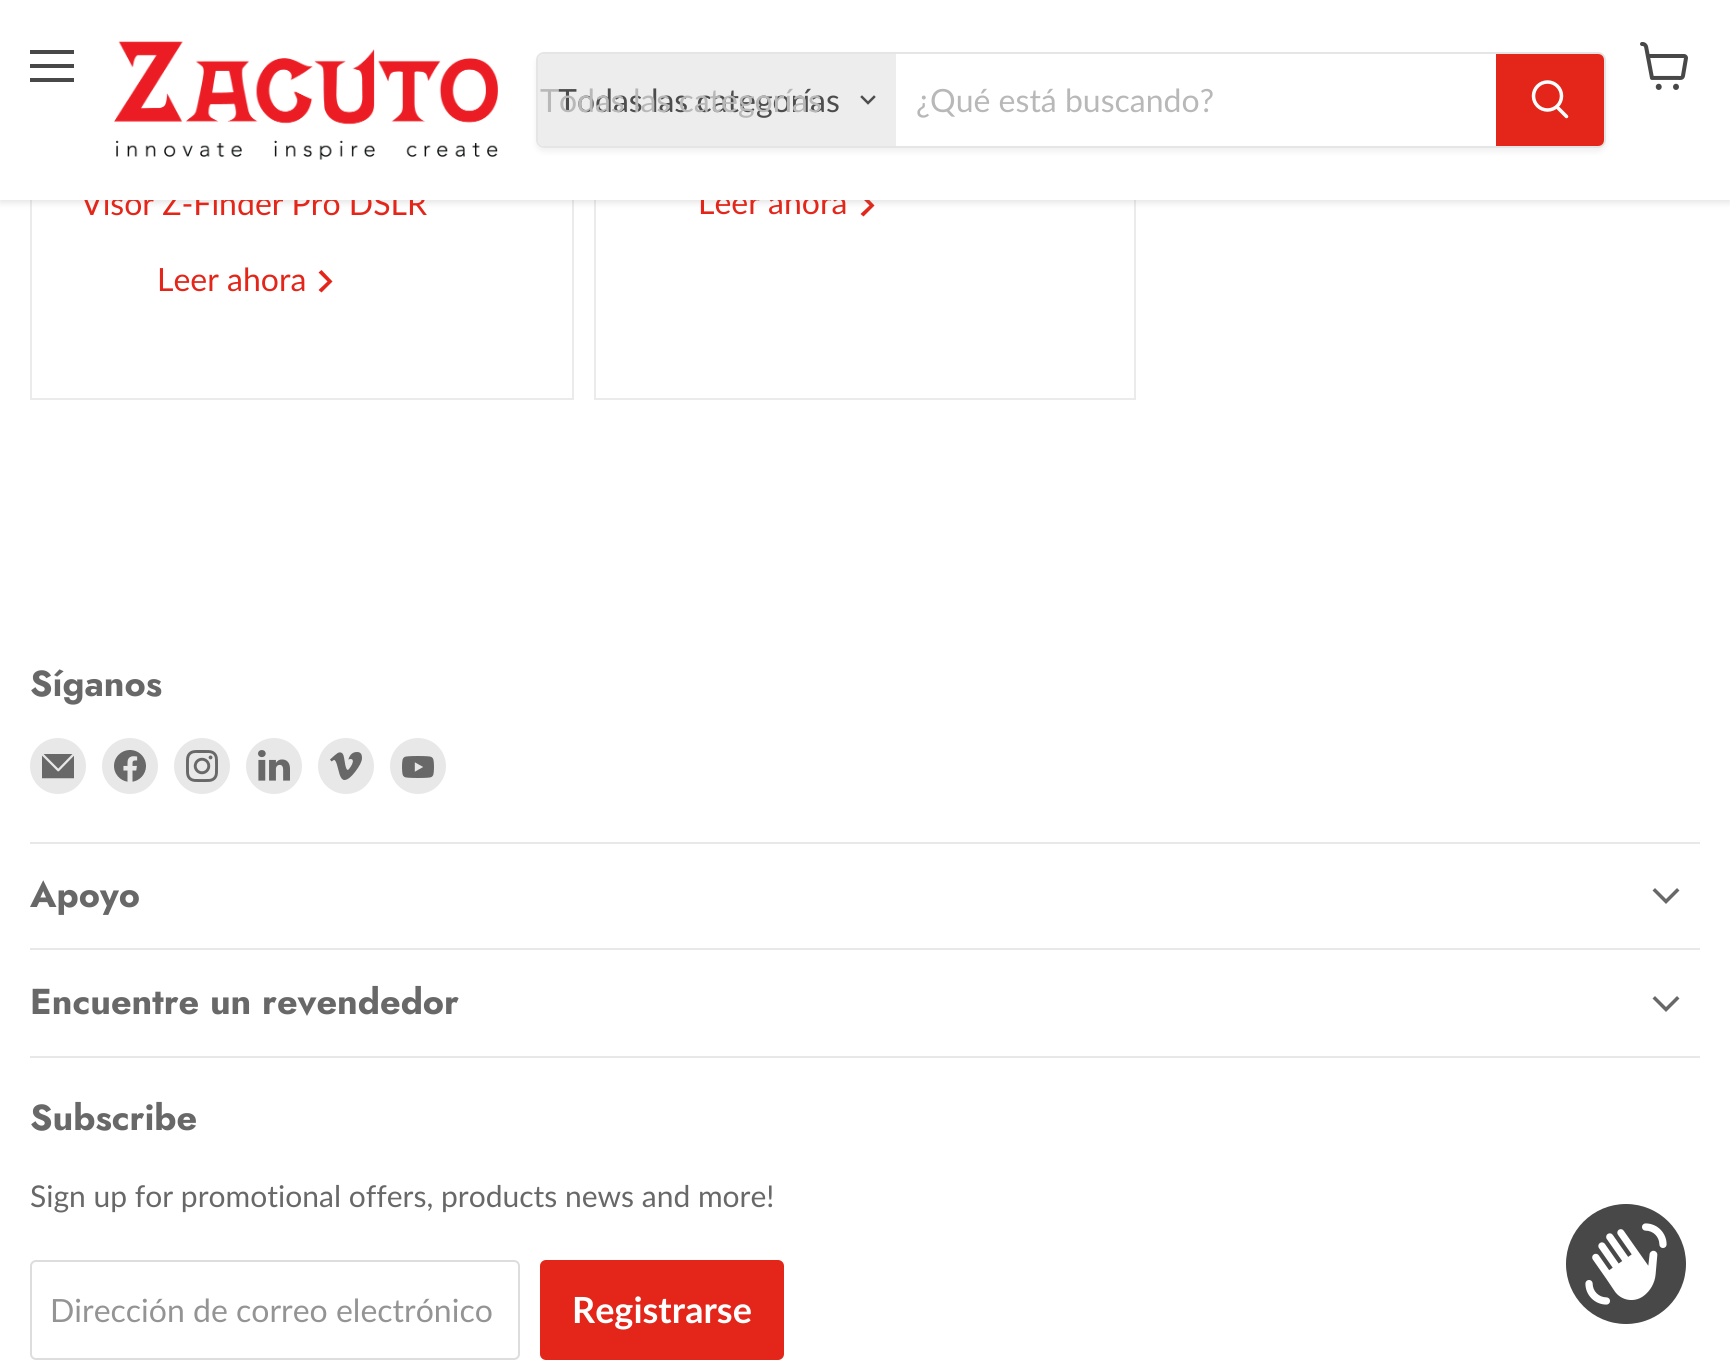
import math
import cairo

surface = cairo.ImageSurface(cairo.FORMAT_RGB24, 1730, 1366)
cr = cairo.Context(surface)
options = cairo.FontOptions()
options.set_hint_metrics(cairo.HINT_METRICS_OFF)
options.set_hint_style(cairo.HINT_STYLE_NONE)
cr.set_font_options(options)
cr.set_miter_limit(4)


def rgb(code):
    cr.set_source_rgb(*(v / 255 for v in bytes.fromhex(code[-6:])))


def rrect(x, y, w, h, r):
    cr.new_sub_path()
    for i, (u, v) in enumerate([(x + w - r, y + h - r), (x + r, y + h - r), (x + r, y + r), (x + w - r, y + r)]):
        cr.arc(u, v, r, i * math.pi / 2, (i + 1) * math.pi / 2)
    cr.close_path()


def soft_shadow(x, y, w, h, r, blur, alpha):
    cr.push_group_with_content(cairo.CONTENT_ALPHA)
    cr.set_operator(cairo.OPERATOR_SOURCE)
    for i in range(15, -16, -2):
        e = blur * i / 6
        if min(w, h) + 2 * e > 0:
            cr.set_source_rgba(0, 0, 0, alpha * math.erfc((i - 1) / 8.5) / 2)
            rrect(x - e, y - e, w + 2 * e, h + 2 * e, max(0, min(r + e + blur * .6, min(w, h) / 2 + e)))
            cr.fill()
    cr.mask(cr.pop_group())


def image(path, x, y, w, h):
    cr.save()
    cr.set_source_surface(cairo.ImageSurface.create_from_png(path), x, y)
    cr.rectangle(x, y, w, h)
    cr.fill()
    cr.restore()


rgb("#ffffff")
cr.paint()
cr.rectangle(31, -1, 542, 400)
rgb("#ebebeb")
cr.stroke()
cr.rectangle(595, -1, 540, 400)
cr.stroke()
rgb("#e32619")
cr.set_fill_rule(cairo.FILL_RULE_EVEN_ODD)
cr.new_path()
cr.move_to(869.5, 205.5)
cr.line_to(860.5, 196.5)
cr.line_to(863.5, 194)
cr.line_to(874.5, 205.5)
cr.line_to(863.5, 216.5)
cr.line_to(860.5, 214)
cr.close_path()
cr.fill()
rgb("#808080")
soft_shadow(0, 2, 1730, 200, 0, 4, 0.25)
rgb("#e32619")
cr.new_path()
cr.move_to(327.5, 281.5)
cr.line_to(318.5, 272.5)
cr.line_to(321.5, 270)
cr.line_to(332.5, 281.5)
cr.line_to(321.5, 292.5)
cr.line_to(318.5, 290)
cr.close_path()
cr.fill()
rgb("#e8e8e8")
cr.rectangle(30, 842, 1670, 2)
cr.fill()
cr.arc(58, 766, 28, 0, 2 * math.pi)
cr.fill()
image("img/3.png", 42, 754, 32, 25)
cr.arc(130, 766, 28, 0, 2 * math.pi)
cr.fill()
image("img/4.png", 114, 750, 32, 32)
cr.arc(202, 766, 28, 0, 2 * math.pi)
cr.fill()
image("img/5.png", 186, 750, 32, 32)
cr.arc(274, 766, 28, 0, 2 * math.pi)
cr.fill()
image("img/6.png", 258, 750, 32, 31)
cr.arc(346, 766, 28, 0, 2 * math.pi)
cr.fill()
image("img/7.png", 330, 752, 32, 28)
cr.arc(418, 766, 28, 0, 2 * math.pi)
cr.fill()
image("img/8.png", 402, 756, 32, 22)
cr.rectangle(30, 948, 1670, 2)
cr.fill()
cr.new_path()
cr.move_to(1666, 901.5)
cr.line_to(1677, 890.5)
cr.move_to(1666, 901.5)
cr.line_to(1655, 890.5)
rgb("#686868")
cr.set_line_width(3.5)
cr.set_line_cap(cairo.LINE_CAP_SQUARE)
cr.stroke()
rgb("#e8e8e8")
cr.rectangle(30, 1056, 1670, 2)
cr.fill()
cr.new_path()
cr.move_to(1666, 1009.5)
cr.line_to(1677, 998.5)
cr.move_to(1666, 1009.5)
cr.line_to(1655, 998.5)
rgb("#686868")
cr.stroke()
rrect(31, 1261, 488, 98, 5)
rgb("#dddddd")
cr.set_line_width(2)
cr.set_line_cap(cairo.LINE_CAP_BUTT)
cr.stroke()
rgb("#e32619")
rrect(541, 1261, 242, 98, 5)
cr.fill_preserve()
cr.stroke()
rgb("#484848")
cr.arc(1626, 1264, 60, 0, 2 * math.pi)
cr.fill()
image("img/9.png", 1585, 1223, 82, 82)
cr.select_font_face("Lato")
cr.set_font_size(32)
rgb("#e32619")
for x, y, s in [
    (81, 215, "Visor Z-Finder Pro DSLR"),
    (157, 291, "Leer ahora"),
    (698, 214, "Leer ahora"),
]:
    cr.move_to(x, y)
    cr.show_text(s)
rgb("#ffffff")
cr.rectangle(0, 0, 1730, 200)
cr.fill()
cr.save()
cr.new_path()
cr.move_to(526, 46)
cr.line_to(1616, 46)
cr.line_to(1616, 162)
cr.line_to(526, 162)
cr.close_path()
cr.move_to(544, 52)
cr.line_to(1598, 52)
cr.curve_to(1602.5, 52, 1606, 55.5, 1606, 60)
cr.line_to(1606, 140)
cr.curve_to(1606, 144.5, 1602.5, 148, 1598, 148)
cr.line_to(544, 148)
cr.curve_to(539.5, 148, 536, 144.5, 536, 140)
cr.line_to(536, 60)
cr.curve_to(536, 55.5, 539.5, 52, 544, 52)
cr.close_path()
cr.clip()
rgb("#808080")
soft_shadow(536, 56, 1070, 96, 8, 3, 0.11)
cr.restore()
rrect(537, 53, 1068, 94, 7)
cr.set_source_rgba(0.502, 0.502, 0.502, 0.2)
cr.stroke()
rgb("#ededed")
cr.new_path()
cr.move_to(544, 54)
cr.line_to(896, 54)
cr.line_to(896, 146)
cr.line_to(544, 146)
cr.curve_to(540.5, 146, 538, 143.5, 538, 140)
cr.line_to(538, 60)
cr.curve_to(538, 56.5, 540.5, 54, 544, 54)
cr.close_path()
cr.fill()
cr.new_path()
cr.move_to(868, 103)
cr.line_to(874, 97)
cr.move_to(868, 103)
cr.line_to(862, 97)
rgb("#4d4d4d")
cr.set_line_width(2.5)
cr.set_line_cap(cairo.LINE_CAP_SQUARE)
cr.stroke()
cr.move_to(558, 112)
cr.show_text("Todas las categorías")
rgb("#b8b8b8")
cr.move_to(540, 112)
cr.show_text("Todas las categorías")
cr.move_to(916, 112)
cr.show_text("¿Qué está buscando?")
rgb("#e32619")
cr.new_path()
cr.move_to(1497, 55)
cr.line_to(1598, 55)
cr.curve_to(1601, 55, 1603, 57, 1603, 60)
cr.line_to(1603, 140)
cr.curve_to(1603, 143, 1601, 145, 1598, 145)
cr.line_to(1497, 145)
cr.close_path()
cr.fill_preserve()
cr.set_line_width(2)
cr.set_line_cap(cairo.LINE_CAP_BUTT)
cr.stroke()
cr.new_path()
cr.move_to(1566.5, 116.5)
cr.line_to(1557, 107)
rgb("#ffffff")
cr.set_line_width(3.5)
cr.set_line_cap(cairo.LINE_CAP_ROUND)
cr.stroke()
cr.arc(1547.5, 96, 14, 0, 2 * math.pi)
cr.set_line_cap(cairo.LINE_CAP_BUTT)
cr.stroke()
image("img/1.png", 1640, 42, 48, 48)
for x, y, w, h, color in [
    (30, 78, 44, 4, "#484848"),
    (30, 64, 44, 4, "#484848"),
    (30, 50, 44, 4, "#484848"),
]:
    rgb(color)
    cr.rectangle(x, y, w, h)
    cr.fill()
image("img/2.png", 114, 41, 384, 119)
cr.select_font_face("Jost", cairo.FONT_SLANT_NORMAL, cairo.FONT_WEIGHT_BOLD)
cr.set_font_size(36)
rgb("#686868")
for x, y, s in [
    (30, 696, "Síganos"),
    (30, 907, "Apoyo"),
    (30, 1014, "Encuentre un revendedor"),
    (30, 1130, "Subscribe"),
]:
    cr.move_to(x, y)
    cr.show_text(s)
cr.select_font_face("Lato")
cr.set_font_size(30)
cr.move_to(30, 1207)
cr.show_text("Sign up for promotional offers, products news and more!")
cr.set_font_size(32)
rgb("#949494")
cr.move_to(50, 1322)
cr.show_text("Dirección de correo electrónico")
cr.select_font_face("Lato", cairo.FONT_SLANT_NORMAL, cairo.FONT_WEIGHT_BOLD)
cr.set_font_size(36)
rgb("#ffffff")
cr.move_to(572, 1323)
cr.show_text("Registrarse")
surface.write_to_png("page.png")
